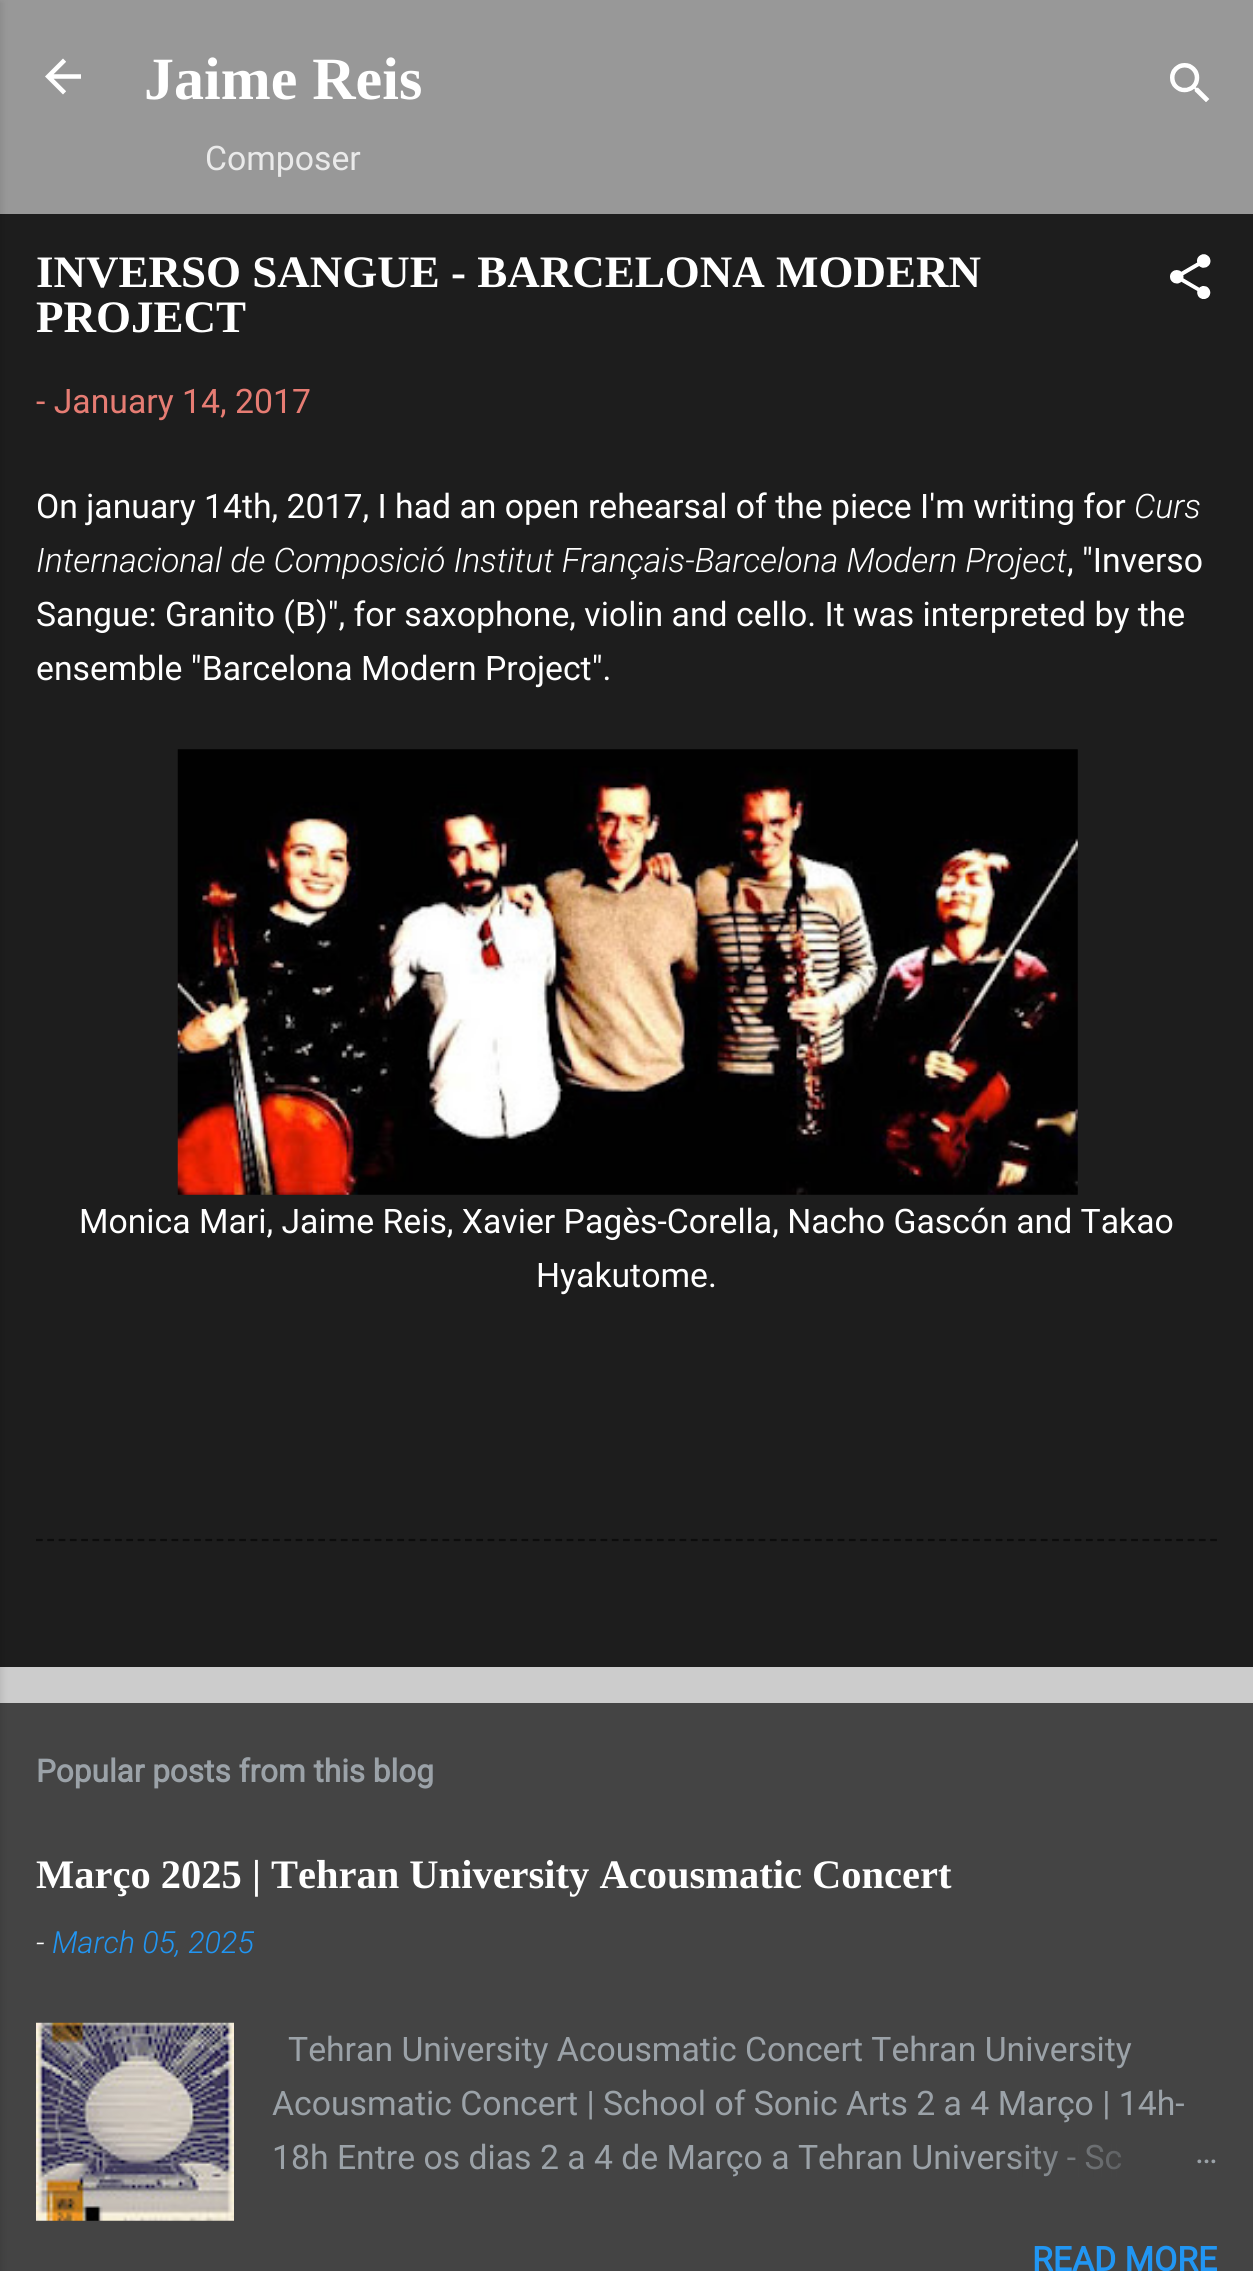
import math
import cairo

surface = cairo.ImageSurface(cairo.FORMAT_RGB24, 1253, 2271)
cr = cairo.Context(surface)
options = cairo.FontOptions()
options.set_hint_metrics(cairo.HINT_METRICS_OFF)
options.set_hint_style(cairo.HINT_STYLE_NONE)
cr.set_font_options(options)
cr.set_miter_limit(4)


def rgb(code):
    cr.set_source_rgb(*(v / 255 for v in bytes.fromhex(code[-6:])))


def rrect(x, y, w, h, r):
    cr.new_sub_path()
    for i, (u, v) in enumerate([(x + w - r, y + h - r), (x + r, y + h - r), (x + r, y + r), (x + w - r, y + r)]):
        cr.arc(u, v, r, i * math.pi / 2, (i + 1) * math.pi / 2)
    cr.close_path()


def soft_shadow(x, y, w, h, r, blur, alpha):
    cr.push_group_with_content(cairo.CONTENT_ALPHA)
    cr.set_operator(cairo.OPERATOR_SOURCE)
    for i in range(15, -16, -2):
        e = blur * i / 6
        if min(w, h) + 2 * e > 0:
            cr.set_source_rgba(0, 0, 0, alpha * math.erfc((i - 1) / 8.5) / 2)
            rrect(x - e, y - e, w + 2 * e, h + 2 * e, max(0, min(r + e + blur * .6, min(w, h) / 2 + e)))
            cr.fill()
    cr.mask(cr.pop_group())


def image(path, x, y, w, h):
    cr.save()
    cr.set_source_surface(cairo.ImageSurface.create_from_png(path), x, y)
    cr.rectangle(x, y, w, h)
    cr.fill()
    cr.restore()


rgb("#cccccc")
cr.paint()
for x, y, w, h, color in [
    (0, 0, 1253, 214, "#989898"),
    (0, 214, 1253, 1453, "#1d1d1d"),
    (0, 1703, 1253, 568, "#444444"),
]:
    rgb(color)
    cr.rectangle(x, y, w, h)
    cr.fill()
rgb("#000000")
soft_shadow(-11, 2, 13, 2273, 0, 3.5, 0.1)
image("img/1.png", 45, 58, 36, 37)
image("img/2.png", 1170, 63, 40, 39)
image("img/3.png", 1170, 254, 41, 45)
image("img/4.png", 177, 749, 901, 446)
cr.new_path()
cr.move_to(36, 1540)
cr.line_to(1217, 1540)
rgb("#0d0d0d")
cr.set_line_width(2.2)
cr.set_dash([6.75, 4.54])
cr.stroke()
image("img/5.png", 36, 2022, 198, 199)
cr.select_font_face("Liberation Serif", cairo.FONT_SLANT_NORMAL, cairo.FONT_WEIGHT_BOLD)
cr.set_font_size(60)
rgb("#ffffff")
cr.move_to(144, 99)
cr.show_text("Jaime Reis")
cr.select_font_face("Roboto")
cr.set_font_size(33.75)
rgb("#eaeaea")
cr.move_to(205, 170)
cr.show_text("Composer")
cr.select_font_face("Liberation Serif", cairo.FONT_SLANT_NORMAL, cairo.FONT_WEIGHT_BOLD)
cr.set_font_size(45)
rgb("#ffffff")
cr.move_to(36, 287)
cr.show_text("INVERSO SANGUE - BARCELONA MODERN")
cr.move_to(36, 332)
cr.show_text("PROJECT")
cr.select_font_face("Roboto")
cr.set_font_size(33.75)
rgb("#e67c73")
cr.move_to(36, 413)
cr.show_text("- January 14, 2017")
rgb("#ffffff")
cr.move_to(36, 518)
cr.show_text("On january 14th, 2017, I had an open rehearsal of the piece I'm writing for")
cr.select_font_face("Roboto Light", cairo.FONT_SLANT_ITALIC)
cr.move_to(1134, 518)
cr.show_text("Curs")
cr.move_to(36, 572)
cr.show_text("Internacional de Composició Institut Français-Barcelona Modern Project")
cr.select_font_face("Roboto")
for x, y, s in [
    (1067, 572, ", \"Inverso"),
    (36, 626, "Sangue: Granito (B)\", for saxophone, violin and cello. It was interpreted by the"),
    (36, 680, "ensemble \"Barcelona Modern Project\"."),
    (79, 1233, "Monica Mari, Jaime Reis, Xavier Pagès-Corella, Nacho Gascón and Takao"),
    (536, 1287, "Hyakutome."),
]:
    cr.move_to(x, y)
    cr.show_text(s)
cr.select_font_face("Roboto", cairo.FONT_SLANT_NORMAL, cairo.FONT_WEIGHT_BOLD)
cr.set_font_size(31.5)
rgb("#9ba2a8")
cr.move_to(36, 1782)
cr.show_text("Popular posts from this blog")
cr.select_font_face("Liberation Serif", cairo.FONT_SLANT_NORMAL, cairo.FONT_WEIGHT_BOLD)
cr.set_font_size(40.5)
rgb("#ffffff")
cr.move_to(36, 1888)
cr.show_text("Março 2025 | Tehran University Acousmatic Concert")
cr.select_font_face("Roboto Light", cairo.FONT_SLANT_ITALIC)
cr.set_font_size(30.5)
cr.move_to(36, 1953)
cr.show_text("-")
rgb("#2196f3")
cr.move_to(52, 1953)
cr.show_text("March 05, 2025")
cr.select_font_face("Roboto")
cr.set_font_size(33.75)
rgb("#9ba2a8")
for x, y, s in [
    (288, 2061, "Tehran University Acousmatic Concert Tehran University"),
    (272, 2115, "Acousmatic Concert | School of Sonic Arts 2 a 4 Março | 14h-"),
    (272, 2169, "18h Entre os dias 2 a 4 de Março a Tehran University - Sc"),
]:
    cr.move_to(x, y)
    cr.show_text(s)
gradient = cairo.LinearGradient(1217, 2158, 1001, 2158)
gradient.add_color_stop_rgba(0, 0.267, 0.267, 0.267, 1)
gradient.add_color_stop_rgba(0.2, 0.267, 0.267, 0.267, 1)
gradient.add_color_stop_rgba(1, 0.267, 0.267, 0.267, 0)
cr.set_source(gradient)
cr.rectangle(1007, 2144, 114, 33)
cr.fill()
rgb("#9ba2a8")
cr.move_to(1195, 2163)
cr.show_text("…")
cr.select_font_face("Roboto", cairo.FONT_SLANT_NORMAL, cairo.FONT_WEIGHT_BOLD)
rgb("#2196f3")
cr.move_to(1032, 2271)
cr.show_text("READ MORE")
surface.write_to_png("page.png")
